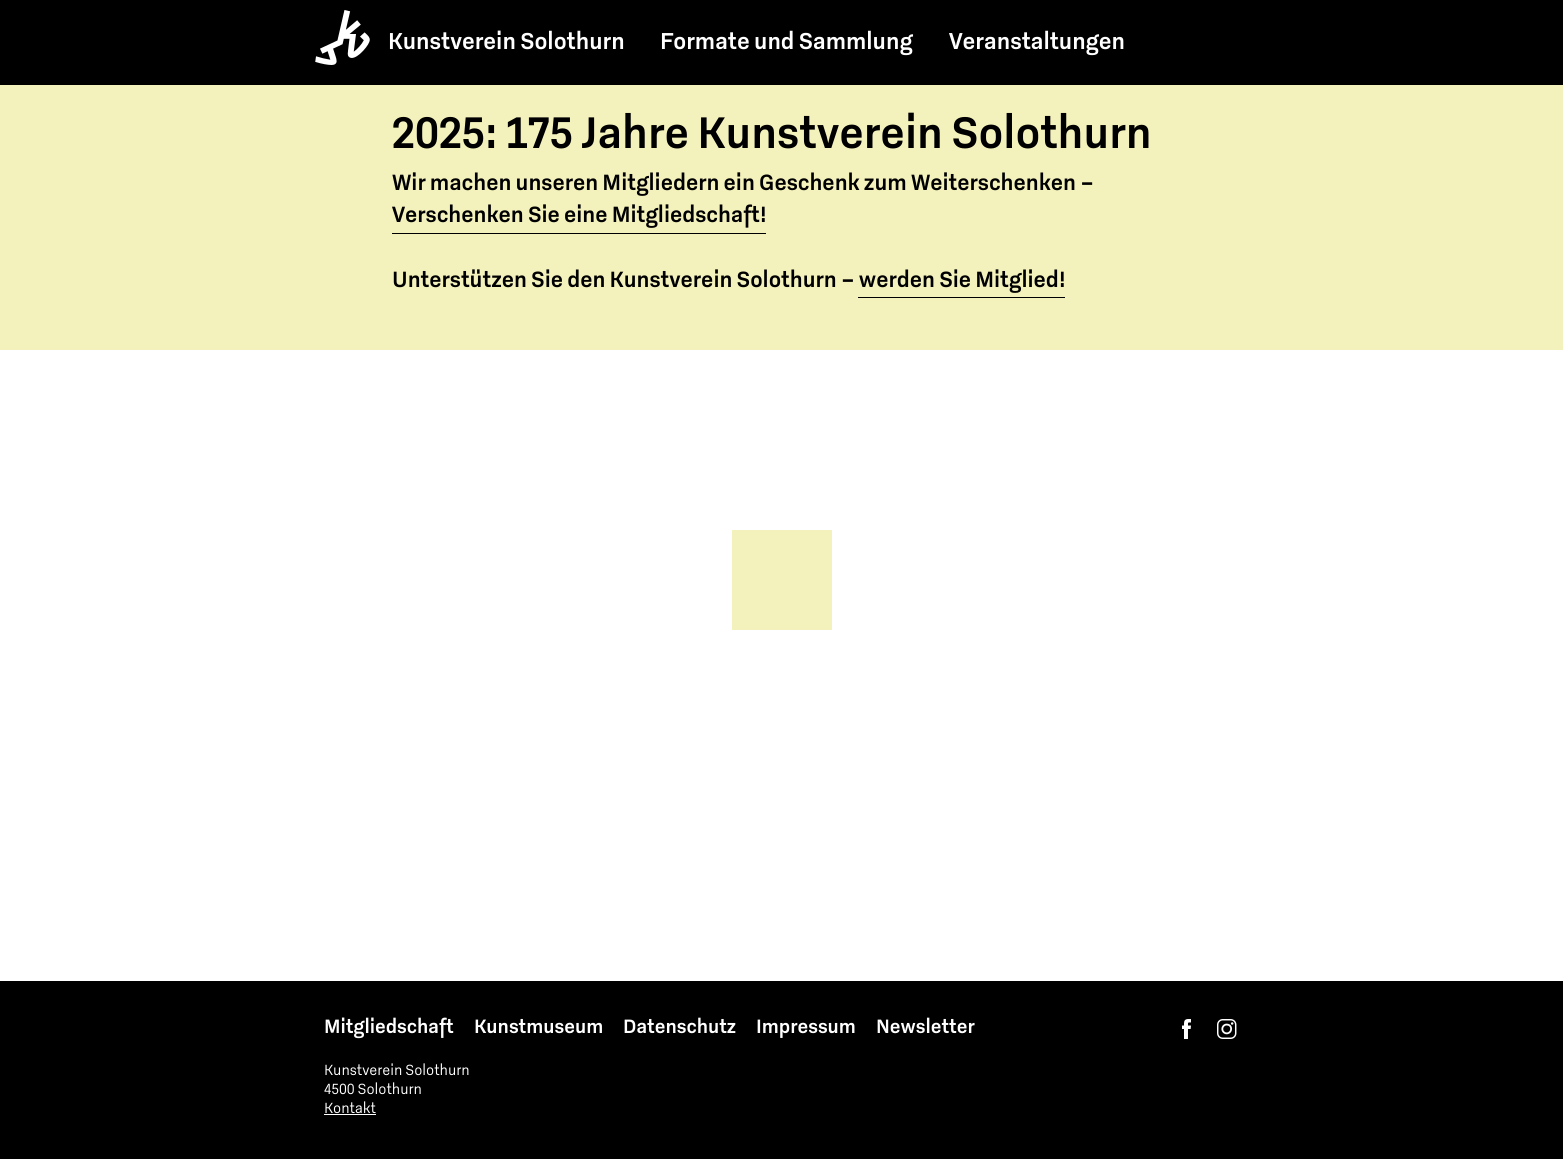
import math
import cairo

surface = cairo.ImageSurface(cairo.FORMAT_RGB24, 1563, 1159)
cr = cairo.Context(surface)
options = cairo.FontOptions()
options.set_hint_metrics(cairo.HINT_METRICS_OFF)
options.set_hint_style(cairo.HINT_STYLE_NONE)
cr.set_font_options(options)
cr.set_miter_limit(4)


def rgb(code):
    cr.set_source_rgb(*(v / 255 for v in bytes.fromhex(code[-6:])))


def image(path, x, y, w, h):
    cr.save()
    cr.set_source_surface(cairo.ImageSurface.create_from_png(path), x, y)
    cr.rectangle(x, y, w, h)
    cr.fill()
    cr.restore()


rgb("#ffffff")
cr.paint()
rgb("#f4f2bc")
cr.rectangle(732, 530, 100, 100)
cr.fill()
rgb("#000000")
cr.rectangle(0, 0, 1563, 85)
cr.fill()
image("img/1.png", 315, 10, 55, 55)
for x, y, w, h, color in [
    (0, 85, 1563, 265, "#f4f2bc"),
    (392, 233, 374, 1, "#000000"),
    (858, 297, 207, 1, "#000000"),
    (0, 981, 1563, 178, "#000000"),
]:
    rgb(color)
    cr.rectangle(x, y, w, h)
    cr.fill()
image("img/2.png", 1182, 1019, 9, 20)
image("img/3.png", 1217, 1019, 20, 20)
rgb("#ffffff")
cr.rectangle(324, 1114, 52, 1)
cr.fill()
cr.select_font_face("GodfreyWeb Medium")
cr.set_font_size(25)
for x, y, s in [
    (388, 49, "Kunstverein Solothurn"),
    (660, 49, "Formate und Sammlung"),
    (949, 49, "Veranstaltungen"),
]:
    cr.move_to(x, y)
    cr.show_text(s)
cr.set_font_size(48)
rgb("#000000")
cr.move_to(392, 148)
cr.show_text("2025: 175 Jahre Kunstverein Solothurn")
cr.set_font_size(24)
for x, y, s in [
    (392, 190, "Wir machen unseren Mitgliedern ein Geschenk zum Weiterschenken –"),
    (392, 222, "Verschenken Sie eine Mitgliedschaft!"),
    (392, 287, "Unterstützen Sie den Kunstverein Solothurn – werden Sie Mitglied!"),
]:
    cr.move_to(x, y)
    cr.show_text(s)
cr.set_font_size(21)
rgb("#ffffff")
for x, y, s in [
    (324, 1033, "Mitgliedschaft"),
    (474, 1033, "Kunstmuseum"),
    (623, 1033, "Datenschutz"),
    (756, 1033, "Impressum"),
    (876, 1033, "Newsletter"),
]:
    cr.move_to(x, y)
    cr.show_text(s)
cr.select_font_face("GodfreyWeb Light")
cr.set_font_size(16)
for x, y, s in [
    (324, 1075, "Kunstverein Solothurn"),
    (324, 1094, "4500 Solothurn"),
    (324, 1113, "Kontakt"),
]:
    cr.move_to(x, y)
    cr.show_text(s)
surface.write_to_png("page.png")
